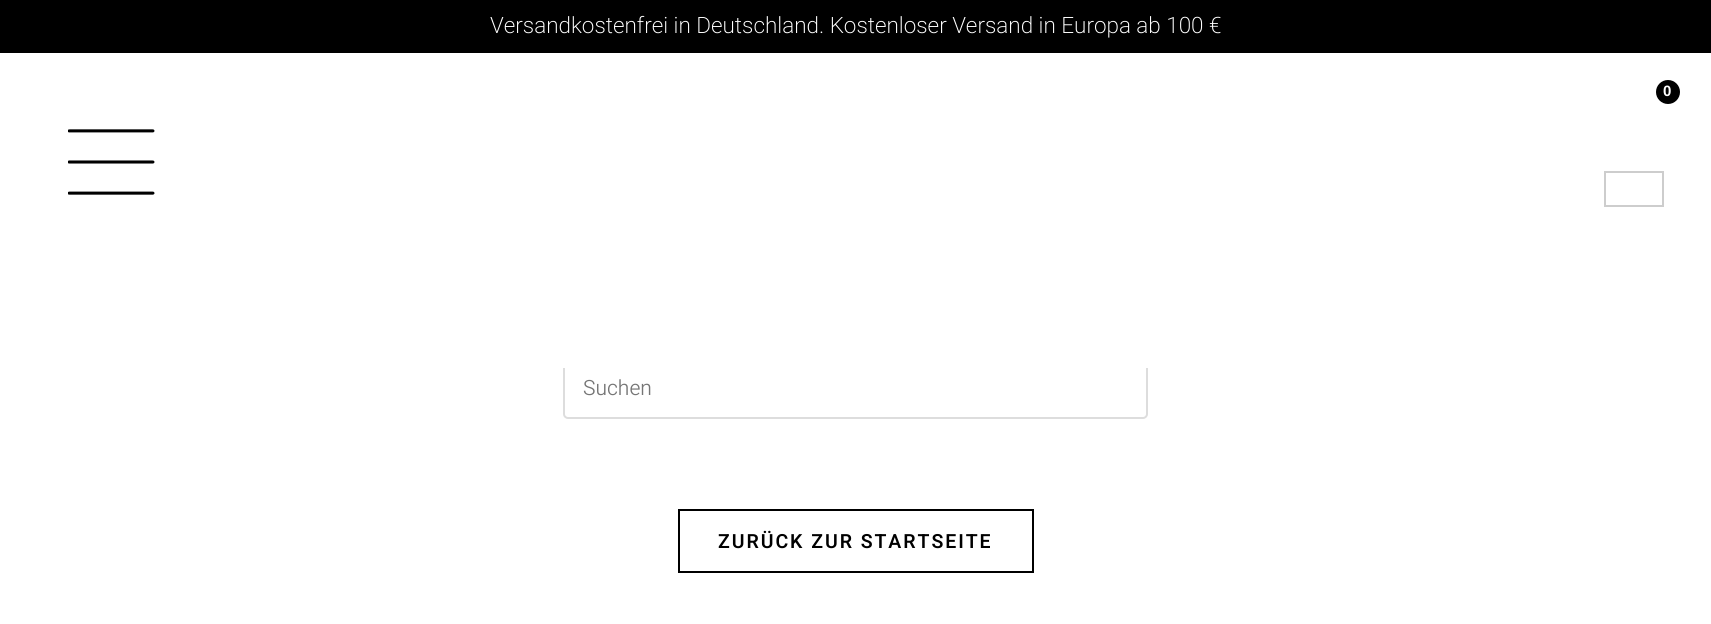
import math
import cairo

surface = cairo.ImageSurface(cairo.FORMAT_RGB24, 1711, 624)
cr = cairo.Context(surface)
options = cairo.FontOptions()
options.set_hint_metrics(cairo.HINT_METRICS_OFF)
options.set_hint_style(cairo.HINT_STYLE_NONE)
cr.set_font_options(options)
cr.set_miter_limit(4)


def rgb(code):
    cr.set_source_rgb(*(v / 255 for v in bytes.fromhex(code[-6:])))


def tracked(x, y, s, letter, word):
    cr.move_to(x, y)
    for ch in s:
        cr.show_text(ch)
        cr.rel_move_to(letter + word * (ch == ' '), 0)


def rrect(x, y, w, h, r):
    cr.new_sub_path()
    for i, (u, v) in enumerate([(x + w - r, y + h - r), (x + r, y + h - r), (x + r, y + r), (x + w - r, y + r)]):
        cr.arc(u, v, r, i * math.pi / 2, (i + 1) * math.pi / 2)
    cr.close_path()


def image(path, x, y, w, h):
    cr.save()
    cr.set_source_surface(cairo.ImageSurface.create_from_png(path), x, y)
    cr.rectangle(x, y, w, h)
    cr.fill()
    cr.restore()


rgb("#ffffff")
cr.paint()
rrect(564, 360, 583, 58, 4)
rgb("#dddddd")
cr.stroke()
rgb("#ffffff")
cr.rectangle(563, 359, 585, 9)
cr.fill()
rgb("#000000")
cr.rectangle(0, 0, 1711, 53)
cr.fill()
cr.arc(1668, 92, 12, 0, 2 * math.pi)
cr.fill()
cr.rectangle(1605, 172, 58, 34)
rgb("#cdcdcd")
cr.stroke()
image("img/1.png", 68, 129, 87, 66)
cr.rectangle(679, 510, 354, 62)
rgb("#000000")
cr.stroke()
cr.select_font_face("Heebo ExtraLight")
cr.set_font_size(22.5)
rgb("#ffffff")
cr.move_to(490, 33)
cr.show_text("Versandkostenfrei in Deutschland. Kostenloser Versand in Europa ab 100 €")
cr.select_font_face("Liberation Sans", cairo.FONT_SLANT_NORMAL, cairo.FONT_WEIGHT_BOLD)
cr.set_font_size(15)
cr.move_to(1663, 96)
cr.show_text("0")
cr.select_font_face("Heebo Light")
cr.set_font_size(21)
rgb("#757575")
cr.move_to(583, 395)
cr.show_text("Suchen")
cr.select_font_face("Heebo SemiBold")
cr.set_font_size(19.5)
rgb("#000000")
tracked(718, 548, "ZURÜCK ZUR STARTSEITE", 1.95, 0)
surface.write_to_png("page.png")
